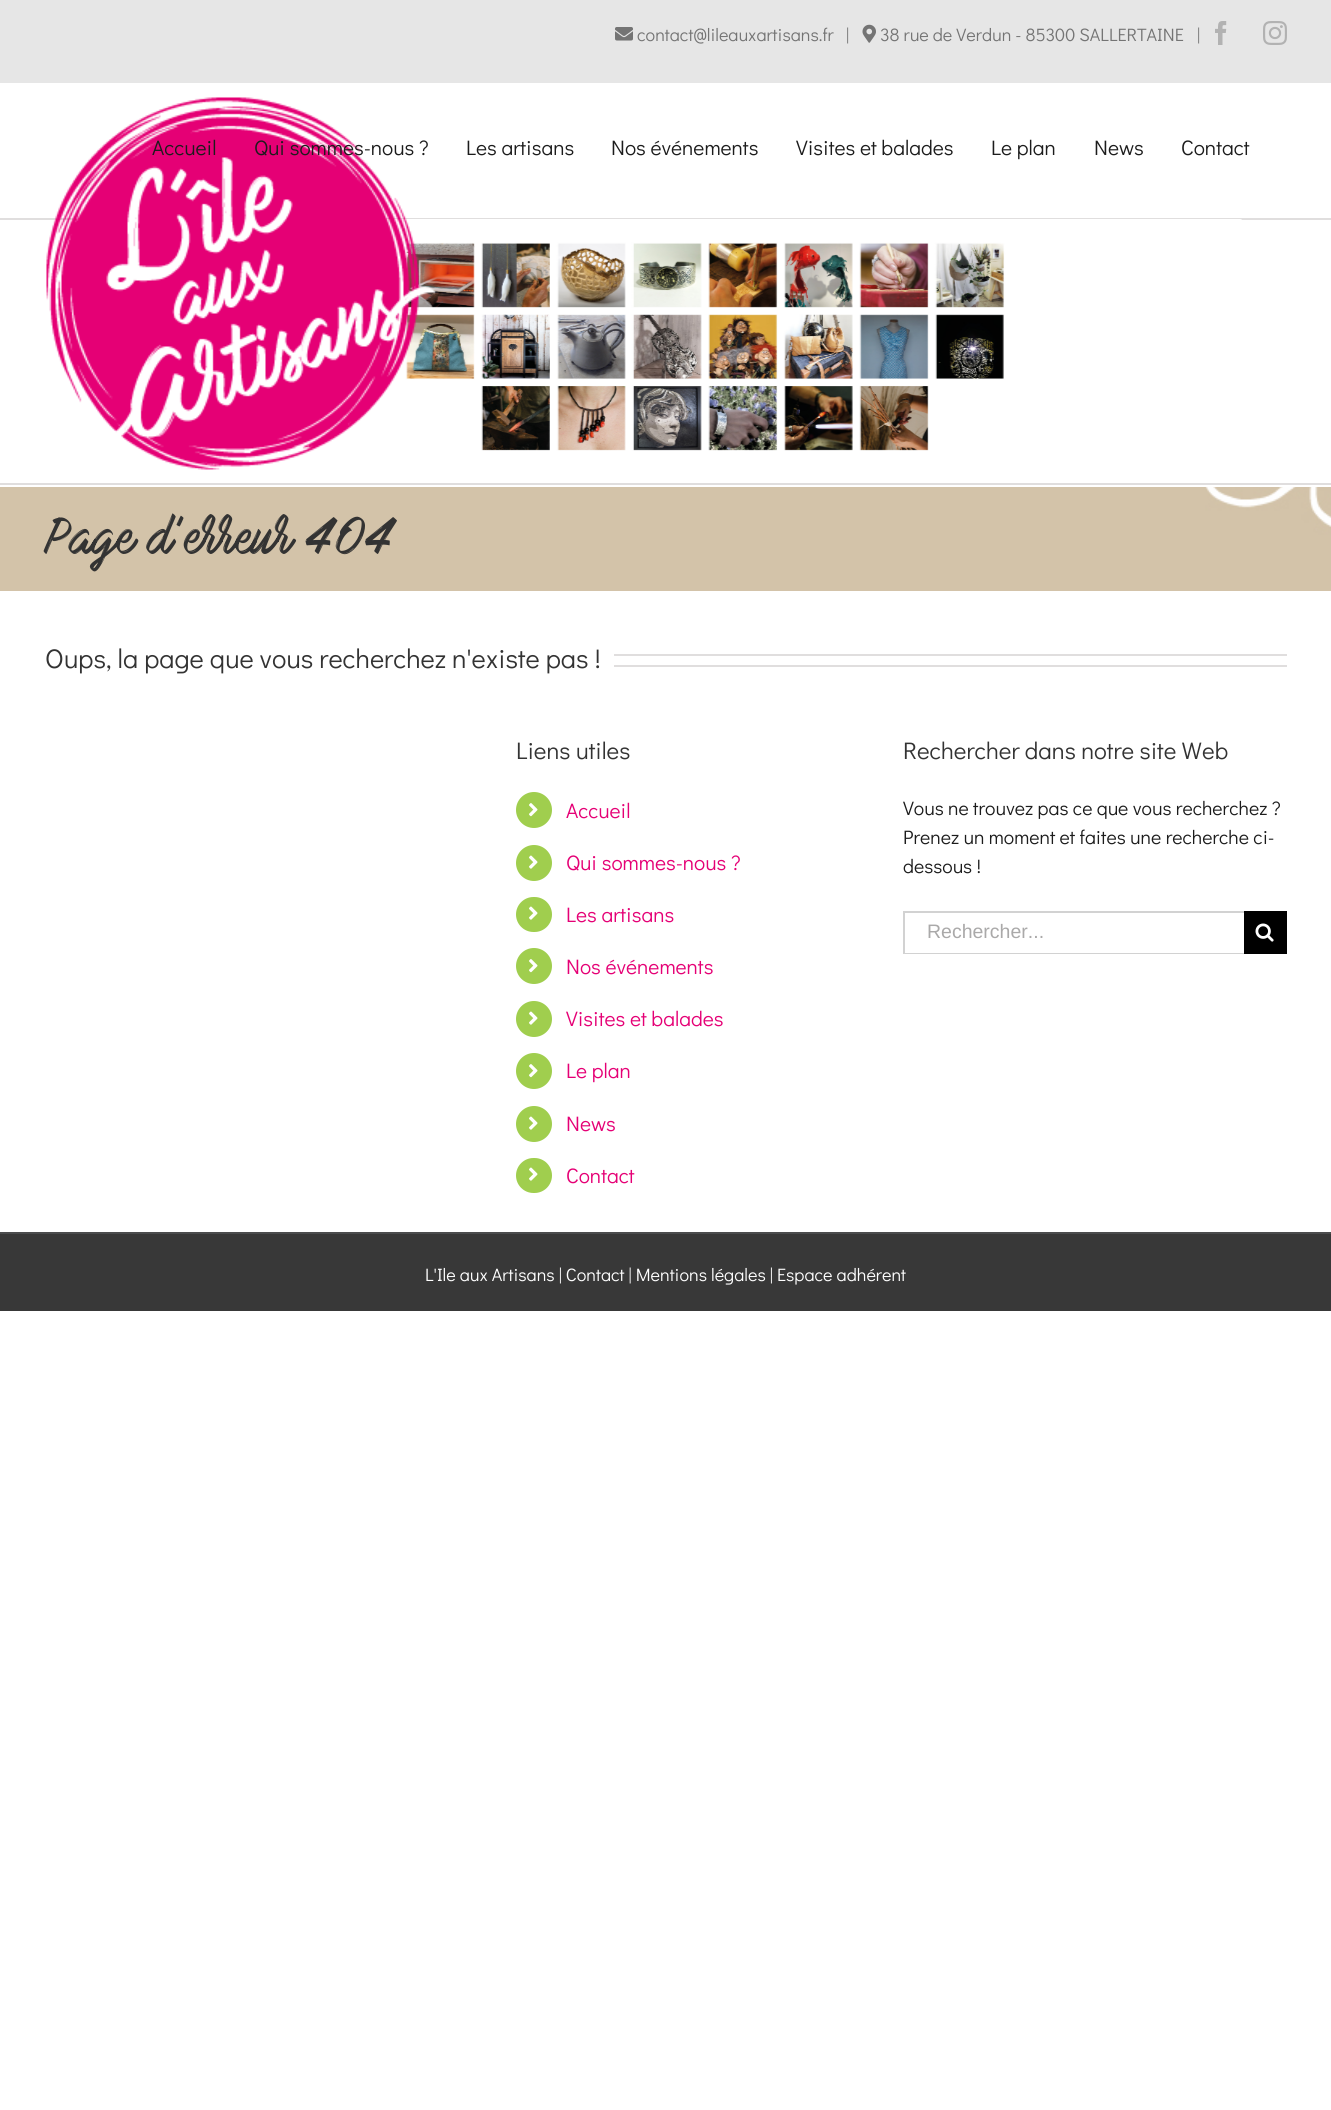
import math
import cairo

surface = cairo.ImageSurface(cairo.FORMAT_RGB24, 1331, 2110)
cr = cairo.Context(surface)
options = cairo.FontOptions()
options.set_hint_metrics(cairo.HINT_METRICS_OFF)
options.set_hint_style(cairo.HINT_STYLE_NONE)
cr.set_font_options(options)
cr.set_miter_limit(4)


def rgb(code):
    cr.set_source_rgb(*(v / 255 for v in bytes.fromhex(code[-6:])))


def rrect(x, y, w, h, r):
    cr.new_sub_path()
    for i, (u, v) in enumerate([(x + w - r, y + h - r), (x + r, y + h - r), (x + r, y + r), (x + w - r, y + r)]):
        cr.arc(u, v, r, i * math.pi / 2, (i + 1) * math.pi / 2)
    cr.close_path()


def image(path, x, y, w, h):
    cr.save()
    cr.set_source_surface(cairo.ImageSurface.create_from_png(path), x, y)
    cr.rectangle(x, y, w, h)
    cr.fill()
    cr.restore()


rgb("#ffffff")
cr.paint()
rgb("#e6e6e6")
cr.rectangle(0, 0, 1331, 83)
cr.fill()
image("img/1.png", 615, 27, 18, 14)
image("img/2.png", 862, 24, 14, 19)
image("img/3.png", 1215, 21, 12, 24)
image("img/4.png", 1263, 21, 24, 24)
rgb("#e0dede")
cr.rectangle(0, 218, 1331, 2)
cr.fill()
image("img/6.png", 91, 219, 1151, 232)
image("img/5.png", 46, 97, 390, 373)
cr.rectangle(0, 483, 1331, 2)
cr.fill()
image("img/7.png", 0, 487, 1331, 104)
cr.rectangle(614, 654, 673, 2)
cr.fill()
cr.rectangle(614, 665, 673, 2)
cr.fill()
rgb("#a0ce4e")
cr.arc(534, 810, 18, 0, 2 * math.pi)
cr.fill()
image("img/8.png", 529, 803, 9, 14)
cr.arc(534, 863, 18, 0, 2 * math.pi)
cr.fill()
image("img/9.png", 529, 855, 9, 14)
rrect(516, 897, 36, 35, 17.5)
cr.fill()
image("img/9.png", 529, 906, 9, 14)
cr.arc(534, 966, 18, 0, 2 * math.pi)
cr.fill()
image("img/8.png", 529, 959, 9, 14)
cr.arc(534, 1019, 18, 0, 2 * math.pi)
cr.fill()
image("img/9.png", 529, 1011, 9, 14)
cr.arc(534, 1071, 18, 0, 2 * math.pi)
cr.fill()
image("img/8.png", 529, 1064, 9, 14)
cr.arc(534, 1124, 18, 0, 2 * math.pi)
cr.fill()
image("img/9.png", 529, 1116, 9, 14)
rrect(516, 1158, 36, 35, 17.5)
cr.fill()
image("img/9.png", 529, 1167, 9, 14)
for x, y, w, h, color in [
    (903, 911, 341, 2, "#d2d2d2"),
    (903, 953, 341, 1, "#d2d2d2"),
    (903, 911, 2, 43, "#d2d2d2"),
    (1244, 911, 43, 43, "#000000"),
]:
    rgb(color)
    cr.rectangle(x, y, w, h)
    cr.fill()
image("img/10.png", 1255, 923, 19, 19)
rgb("#383838")
cr.rectangle(0, 1234, 1331, 77)
cr.fill()
rgb("#4b4c4d")
cr.rectangle(0, 1232, 1331, 2)
cr.fill()
cr.select_font_face("Didact Gothic")
cr.set_font_size(18)
rgb("#747474")
for x, y, s in [
    (637, 41, "contact@lileauxartisans.fr"),
    (846, 41, "|"),
    (880, 41, "38 rue de Verdun - 85300 SALLERTAINE"),
    (1197, 41, "|"),
]:
    cr.move_to(x, y)
    cr.show_text(s)
cr.set_font_size(21)
rgb("#1c1c1c")
for x, y, s in [
    (152, 155, "Accueil"),
    (254, 155, "Qui sommes-nous ?"),
    (466, 155, "Les artisans"),
    (611, 155, "Nos événements"),
    (796, 155, "Visites et balades"),
    (991, 155, "Le plan"),
    (1094, 155, "News"),
    (1181, 155, "Contact"),
]:
    cr.move_to(x, y)
    cr.show_text(s)
cr.select_font_face("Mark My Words")
cr.set_font_size(45)
rgb("#333333")
cr.move_to(45, 554)
cr.show_text("Page d'erreur 404")
cr.select_font_face("Didact Gothic")
cr.set_font_size(27)
cr.move_to(45, 668)
cr.show_text("Oups, la page que vous recherchez n'existe pas !")
cr.set_font_size(24)
cr.move_to(516, 759)
cr.show_text("Liens utiles")
cr.set_font_size(21)
rgb("#e50075")
for x, y, s in [
    (566, 818, "Accueil"),
    (566, 870, "Qui sommes-nous ?"),
    (566, 922, "Les artisans"),
    (566, 974, "Nos événements"),
    (566, 1026, "Visites et balades"),
    (566, 1078, "Le plan"),
    (566, 1131, "News"),
    (566, 1183, "Contact"),
]:
    cr.move_to(x, y)
    cr.show_text(s)
cr.set_font_size(24)
rgb("#333333")
cr.move_to(903, 759)
cr.show_text("Rechercher dans notre site Web")
cr.set_font_size(19.5)
rgb("#1c1c1c")
for x, y, s in [
    (903, 815, "Vous ne trouvez pas ce que vous recherchez ?"),
    (903, 844, "Prenez un moment et faites une recherche ci-"),
    (903, 873, "dessous !"),
]:
    cr.move_to(x, y)
    cr.show_text(s)
cr.select_font_face("Liberation Sans")
rgb("#aaa9a9")
cr.move_to(927, 938)
cr.show_text("Rechercher...")
cr.select_font_face("Didact Gothic")
cr.set_font_size(18)
rgb("#ffffff")
cr.move_to(425, 1281)
cr.show_text("L'Ile aux Artisans | Contact | Mentions légales | Espace adhérent")
surface.write_to_png("page.png")
